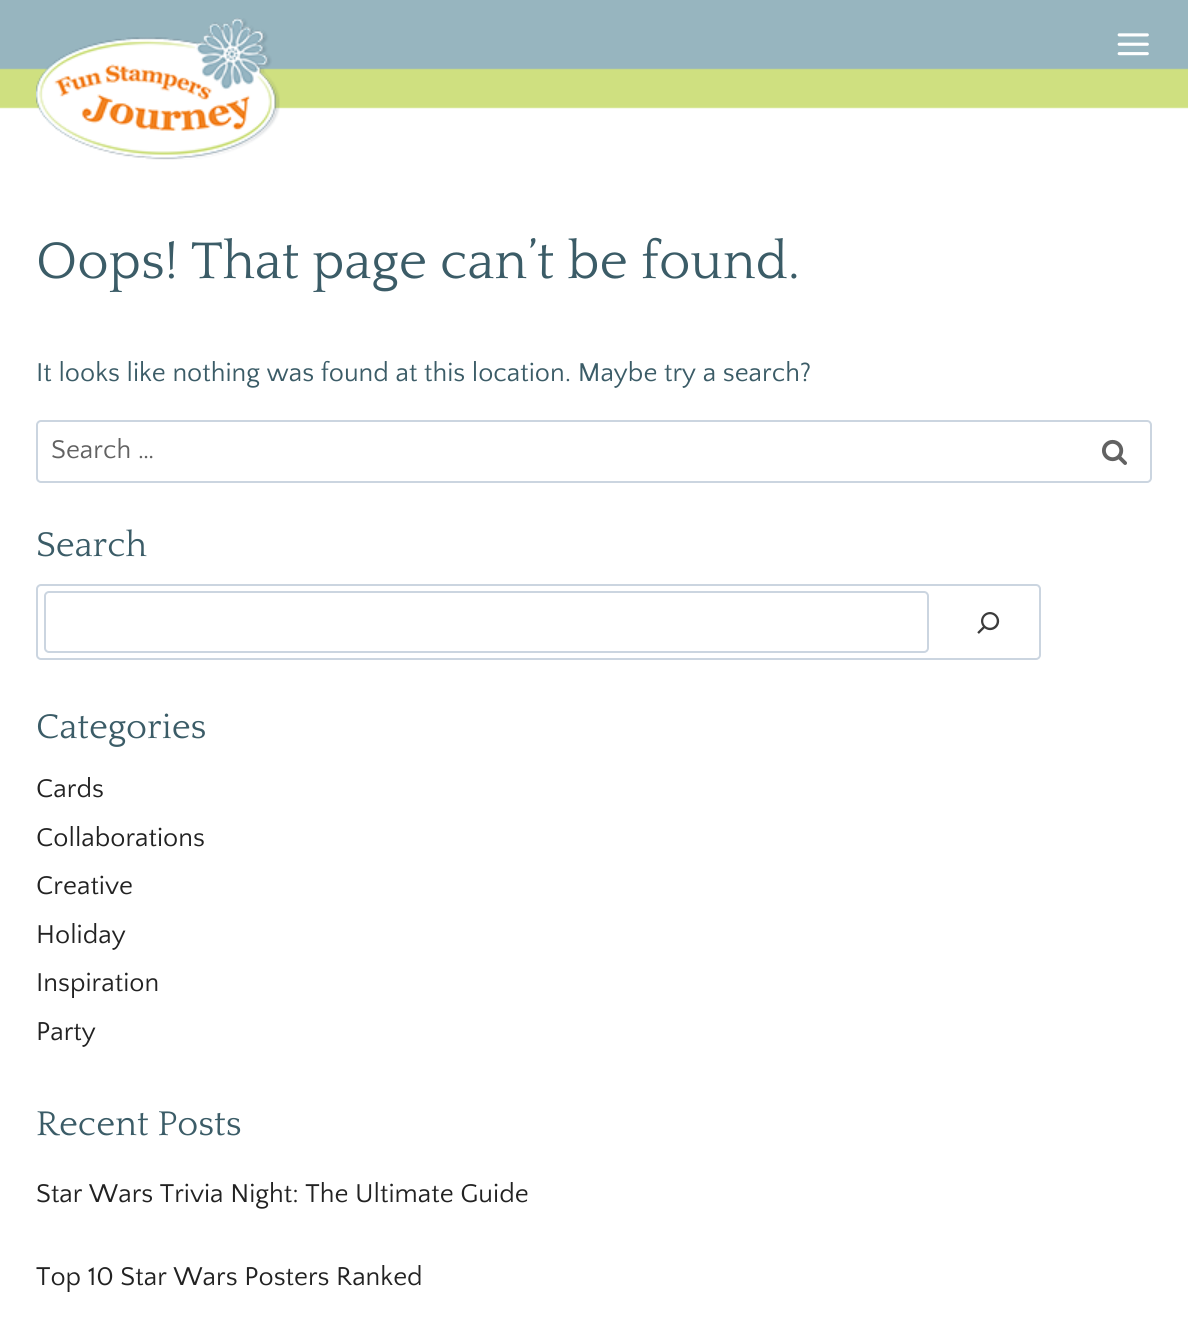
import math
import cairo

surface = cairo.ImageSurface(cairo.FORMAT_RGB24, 1188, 1326)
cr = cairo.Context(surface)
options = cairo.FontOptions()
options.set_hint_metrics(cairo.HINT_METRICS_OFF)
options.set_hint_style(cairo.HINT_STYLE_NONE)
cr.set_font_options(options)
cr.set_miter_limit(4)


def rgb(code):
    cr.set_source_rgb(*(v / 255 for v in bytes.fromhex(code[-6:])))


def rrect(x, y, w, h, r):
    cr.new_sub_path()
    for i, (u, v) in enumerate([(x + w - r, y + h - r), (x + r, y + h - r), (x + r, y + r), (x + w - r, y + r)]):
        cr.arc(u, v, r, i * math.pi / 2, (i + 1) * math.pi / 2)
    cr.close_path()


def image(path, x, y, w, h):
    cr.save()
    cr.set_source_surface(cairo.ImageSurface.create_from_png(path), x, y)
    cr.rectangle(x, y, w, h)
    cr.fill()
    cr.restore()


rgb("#ffffff")
cr.paint()
image("img/1.png", 0, 0, 1188, 109)
image("img/2.png", 36, 18, 244, 142)
image("img/3.png", 1117, 33, 32, 23)
rrect(37, 421, 1114, 61, 4)
rgb("#cbd5e0")
cr.stroke()
image("img/4.png", 1102, 439, 25, 26)
rrect(37, 585, 1003, 74, 4)
cr.stroke()
rrect(45, 592, 883, 60, 4)
cr.stroke()
image("img/5.png", 977, 612, 23, 22)
cr.select_font_face("Quattrocento")
cr.set_font_size(54)
rgb("#3b5c67")
cr.move_to(36, 278)
cr.show_text("Oops! That page can’t be found.")
cr.select_font_face("Quattrocento Sans")
cr.set_font_size(27)
cr.move_to(36, 381)
cr.show_text("It looks like nothing was found at this location. Maybe try a search?")
rgb("#626262")
cr.move_to(51, 458)
cr.show_text("Search …")
cr.select_font_face("Quattrocento")
cr.set_font_size(36)
rgb("#3b5c67")
cr.move_to(36, 556)
cr.show_text("Search")
cr.move_to(36, 738)
cr.show_text("Categories")
cr.select_font_face("Quattrocento Sans")
cr.set_font_size(27)
rgb("#222222")
for x, y, s in [
    (36, 797, "Cards"),
    (36, 846, "Collaborations"),
    (36, 894, "Creative"),
    (36, 943, "Holiday"),
    (36, 991, "Inspiration"),
    (36, 1040, "Party"),
]:
    cr.move_to(x, y)
    cr.show_text(s)
cr.select_font_face("Quattrocento")
cr.set_font_size(36)
rgb("#3b5c67")
cr.move_to(36, 1135)
cr.show_text("Recent Posts")
cr.select_font_face("Quattrocento Sans")
cr.set_font_size(27)
rgb("#222222")
cr.move_to(36, 1202)
cr.show_text("Star Wars Trivia Night: The Ultimate Guide")
cr.move_to(36, 1285)
cr.show_text("Top 10 Star Wars Posters Ranked")
surface.write_to_png("page.png")
